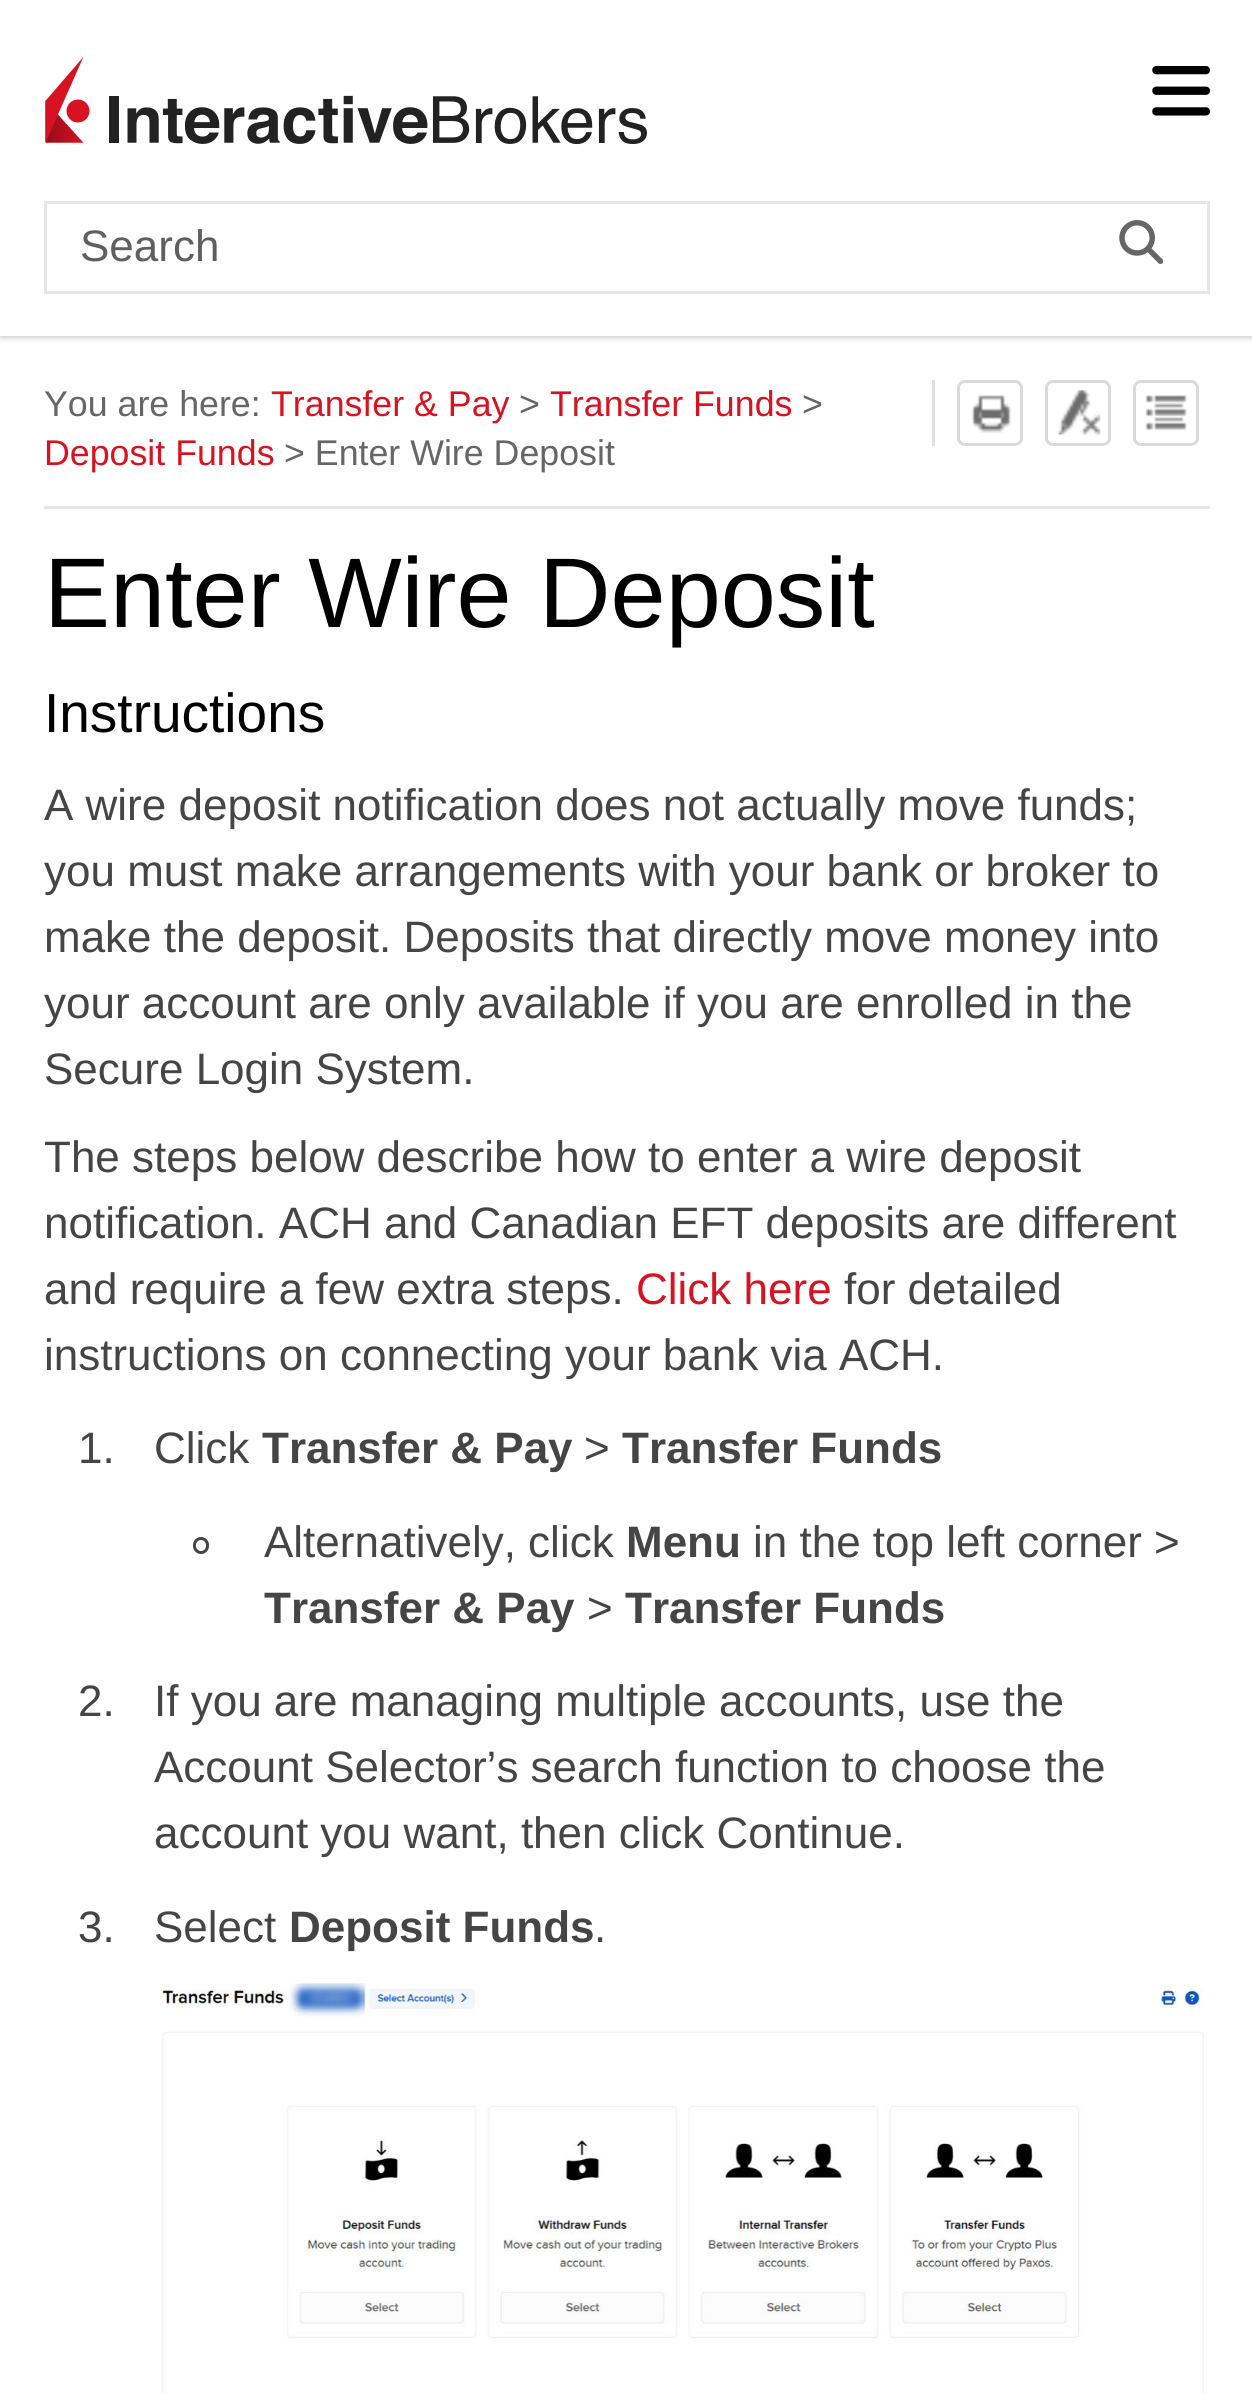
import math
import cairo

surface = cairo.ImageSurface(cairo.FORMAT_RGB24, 1252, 2394)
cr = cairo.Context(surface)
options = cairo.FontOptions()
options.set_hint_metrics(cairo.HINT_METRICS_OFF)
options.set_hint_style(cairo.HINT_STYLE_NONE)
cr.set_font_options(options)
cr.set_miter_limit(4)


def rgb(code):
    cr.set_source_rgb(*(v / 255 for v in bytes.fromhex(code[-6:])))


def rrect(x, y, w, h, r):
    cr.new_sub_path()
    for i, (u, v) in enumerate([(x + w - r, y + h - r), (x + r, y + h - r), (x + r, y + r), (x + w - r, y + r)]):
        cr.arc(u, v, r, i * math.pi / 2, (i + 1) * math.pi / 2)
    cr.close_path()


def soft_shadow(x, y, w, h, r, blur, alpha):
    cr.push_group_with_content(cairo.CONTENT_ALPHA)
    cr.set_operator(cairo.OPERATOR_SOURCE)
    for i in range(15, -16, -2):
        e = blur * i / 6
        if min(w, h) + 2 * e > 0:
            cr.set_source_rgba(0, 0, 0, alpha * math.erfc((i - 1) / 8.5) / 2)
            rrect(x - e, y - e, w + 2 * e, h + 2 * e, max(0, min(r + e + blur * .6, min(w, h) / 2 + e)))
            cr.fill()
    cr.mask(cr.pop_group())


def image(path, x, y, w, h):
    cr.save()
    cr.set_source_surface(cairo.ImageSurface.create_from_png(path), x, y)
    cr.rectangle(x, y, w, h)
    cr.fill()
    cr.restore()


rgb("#ffffff")
cr.paint()
rgb("#000000")
soft_shadow(0, 3, 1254, 335, 0, 3, 0.2)
rgb("#ffffff")
cr.rectangle(0, 0, 1252, 336)
cr.fill()
image("img/1.png", 1152, 66, 58, 50)
image("img/2.png", 45, 57, 602, 88)
cr.rectangle(45.5, 202.5, 1163, 90)
rgb("#e6e6e6")
cr.set_line_width(3)
cr.stroke()
image("img/3.png", 1119, 220, 45, 44)
cr.rectangle(44, 506, 1166, 3)
cr.fill()
rgb("#e1e1e1")
cr.rectangle(932, 380, 3, 66)
cr.fill()
rrect(958.5, 381.5, 63, 63, 6.5)
rgb("#dadada")
cr.stroke()
image("img/4.png", 971, 395, 40, 38)
rrect(1046.5, 381.5, 63, 63, 6.5)
cr.stroke()
image("img/5.png", 1057, 390, 44, 46)
rrect(1134.5, 381.5, 63, 63, 6.5)
cr.stroke()
image("img/6.png", 1145, 395, 42, 36)
rrect(194.5, 1538.5, 13, 14, 6.5)
rgb("#454545")
cr.stroke()
image("img/7.png", 160, 1983, 1044, 411)
cr.select_font_face("Liberation Sans")
cr.set_font_size(44)
rgb("#5f5f5f")
cr.move_to(80, 261)
cr.show_text("Search")
cr.set_font_size(35.75)
rgb("#666666")
cr.move_to(44, 416)
cr.show_text("You are here:")
rgb("#d91222")
cr.move_to(271, 416)
cr.show_text("Transfer & Pay")
rgb("#666666")
cr.move_to(519, 416)
cr.show_text(">")
rgb("#d91222")
cr.move_to(550, 416)
cr.show_text("Transfer Funds")
rgb("#666666")
cr.move_to(802, 416)
cr.show_text(">")
rgb("#d91222")
cr.move_to(44, 465)
cr.show_text("Deposit Funds")
rgb("#666666")
cr.move_to(284, 465)
cr.show_text("> Enter Wire Deposit")
cr.set_font_size(99)
rgb("#000000")
cr.move_to(44, 627)
cr.show_text("Enter Wire Deposit")
cr.set_font_size(55)
cr.move_to(44, 732)
cr.show_text("Instructions")
cr.set_font_size(44)
rgb("#454545")
for x, y, s in [
    (44, 820, "A wire deposit notification does not actually move funds;"),
    (44, 886, "you must make arrangements with your bank or broker to"),
    (44, 952, "make the deposit. Deposits that directly move money into"),
    (44, 1018, "your account are only available if you are enrolled in the"),
    (44, 1084, "Secure Login System."),
    (44, 1172, "The steps below describe how to enter a wire deposit"),
    (44, 1238, "notification. ACH and Canadian EFT deposits are different"),
    (44, 1304, "and require a few extra steps."),
]:
    cr.move_to(x, y)
    cr.show_text(s)
rgb("#d91222")
cr.move_to(636, 1304)
cr.show_text("Click here")
rgb("#454545")
for x, y, s in [
    (844, 1304, "for detailed"),
    (44, 1370, "instructions on connecting your bank via ACH."),
    (78, 1463, "1."),
    (154, 1463, "Click"),
]:
    cr.move_to(x, y)
    cr.show_text(s)
cr.select_font_face("Liberation Sans", cairo.FONT_SLANT_NORMAL, cairo.FONT_WEIGHT_BOLD)
cr.move_to(262, 1463)
cr.show_text("Transfer & Pay")
cr.select_font_face("Liberation Sans")
cr.move_to(584, 1463)
cr.show_text(">")
cr.select_font_face("Liberation Sans", cairo.FONT_SLANT_NORMAL, cairo.FONT_WEIGHT_BOLD)
cr.move_to(622, 1463)
cr.show_text("Transfer Funds")
cr.select_font_face("Liberation Sans")
cr.move_to(264, 1557)
cr.show_text("Alternatively, click")
cr.select_font_face("Liberation Sans", cairo.FONT_SLANT_NORMAL, cairo.FONT_WEIGHT_BOLD)
cr.move_to(626, 1557)
cr.show_text("Menu")
cr.select_font_face("Liberation Sans")
cr.move_to(753, 1557)
cr.show_text("in the top left corner >")
cr.select_font_face("Liberation Sans", cairo.FONT_SLANT_NORMAL, cairo.FONT_WEIGHT_BOLD)
cr.move_to(264, 1623)
cr.show_text("Transfer & Pay")
cr.select_font_face("Liberation Sans")
cr.move_to(587, 1623)
cr.show_text(">")
cr.select_font_face("Liberation Sans", cairo.FONT_SLANT_NORMAL, cairo.FONT_WEIGHT_BOLD)
cr.move_to(625, 1623)
cr.show_text("Transfer Funds")
cr.select_font_face("Liberation Sans")
for x, y, s in [
    (78, 1716, "2."),
    (154, 1716, "If you are managing multiple accounts, use the"),
    (154, 1782, "Account Selector’s search function to choose the"),
    (154, 1848, "account you want, then click Continue."),
    (78, 1942, "3."),
    (154, 1942, "Select"),
]:
    cr.move_to(x, y)
    cr.show_text(s)
cr.select_font_face("Liberation Sans", cairo.FONT_SLANT_NORMAL, cairo.FONT_WEIGHT_BOLD)
cr.move_to(289, 1942)
cr.show_text("Deposit Funds")
cr.select_font_face("Liberation Sans")
cr.move_to(594, 1942)
cr.show_text(".")
surface.write_to_png("page.png")
